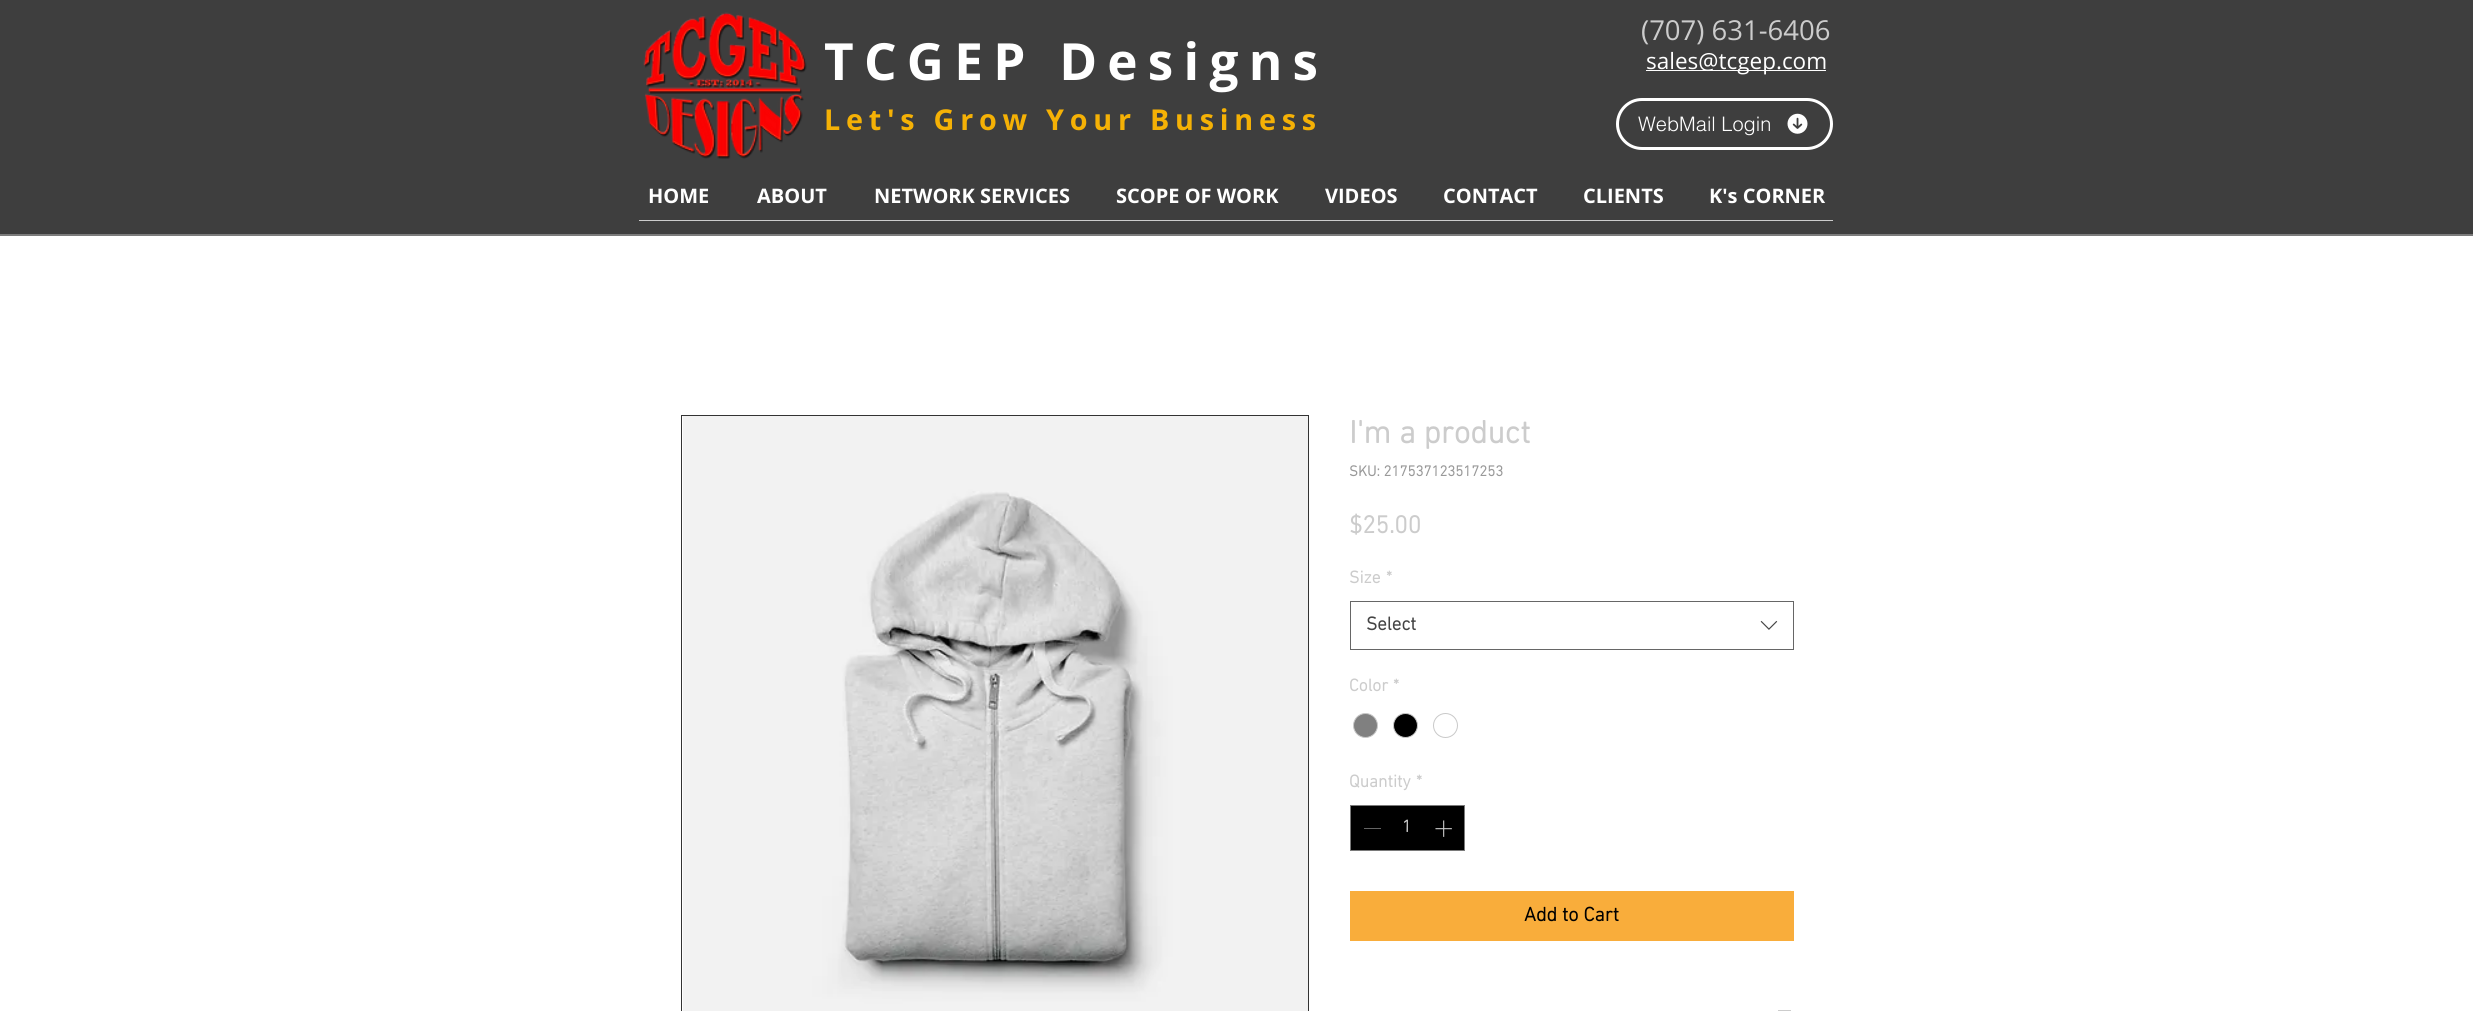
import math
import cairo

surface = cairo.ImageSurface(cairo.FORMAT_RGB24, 2473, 1011)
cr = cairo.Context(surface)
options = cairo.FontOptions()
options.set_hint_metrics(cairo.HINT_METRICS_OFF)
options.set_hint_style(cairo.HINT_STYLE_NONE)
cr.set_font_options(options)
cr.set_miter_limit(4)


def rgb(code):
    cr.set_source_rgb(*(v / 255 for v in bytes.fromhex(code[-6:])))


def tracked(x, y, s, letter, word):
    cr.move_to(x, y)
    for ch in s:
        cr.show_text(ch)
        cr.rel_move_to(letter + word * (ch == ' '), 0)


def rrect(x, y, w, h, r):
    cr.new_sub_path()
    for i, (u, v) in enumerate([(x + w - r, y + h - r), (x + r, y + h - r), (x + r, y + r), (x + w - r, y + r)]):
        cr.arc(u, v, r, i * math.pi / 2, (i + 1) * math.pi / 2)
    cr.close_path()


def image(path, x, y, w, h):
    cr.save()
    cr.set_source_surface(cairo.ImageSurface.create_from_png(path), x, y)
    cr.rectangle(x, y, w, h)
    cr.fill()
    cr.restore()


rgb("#ffffff")
cr.paint()
rgb("#3e3e3e")
cr.rectangle(0, 0, 2473, 234)
cr.fill()
image("img/1.png", 643, 12, 164, 147)
rgb("#ffffff")
cr.rectangle(1646, 70, 180, 1)
cr.fill()
rrect(1617.5, 99.5, 214, 49, 24.5)
cr.set_line_width(3)
cr.stroke()
image("img/2.png", 1787, 113, 21, 21)
rgb("#cccccc")
cr.rectangle(639, 220, 1194, 1)
cr.fill()
rgb("#7b7b7b")
cr.rectangle(0, 234, 2473, 2)
cr.fill()
cr.rectangle(681.5, 415.5, 627, 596)
rgb("#333333")
cr.set_line_width(1)
cr.stroke()
image("img/3.png", 683, 416, 625, 595)
cr.rectangle(1350.5, 601.5, 443, 48)
rgb("#666666")
cr.stroke()
image("img/4.png", 1760, 620, 18, 10)
rgb("#808080")
cr.arc(1365.5, 725.5, 12, 0, 2 * math.pi)
cr.fill_preserve()
rgb("#c9c9c9")
cr.stroke()
rgb("#000000")
cr.arc(1405.5, 725.5, 12, 0, 2 * math.pi)
cr.fill_preserve()
rgb("#c9c9c9")
cr.stroke()
cr.arc(1445.5, 725.5, 12, 0, 2 * math.pi)
cr.stroke()
rgb("#000000")
cr.rectangle(1350.5, 805.5, 114, 45)
cr.fill_preserve()
rgb("#7a7a7a")
cr.stroke()
rgb("#646464")
cr.rectangle(1364, 828, 17, 1)
cr.fill()
image("img/5.png", 1435, 820, 17, 17)
rgb("#f9ad3b")
cr.rectangle(1350, 891, 444, 50)
cr.fill()
rgb("#cccccc")
cr.rectangle(1778, 1010, 13, 1)
cr.fill()
cr.select_font_face("Open Sans", cairo.FONT_SLANT_NORMAL, cairo.FONT_WEIGHT_BOLD)
cr.set_font_size(51.25)
rgb("#ffffff")
tracked(824, 80, "TCGEP Designs", 10.25, 0)
cr.select_font_face("Open Sans")
cr.set_font_size(27.5)
rgb("#cccccc")
cr.move_to(1641, 40)
cr.show_text("(707) 631-6406")
cr.set_font_size(22.5)
rgb("#ffffff")
cr.move_to(1646, 69)
cr.show_text("sales@tcgep.com")
cr.select_font_face("Open Sans", cairo.FONT_SLANT_NORMAL, cairo.FONT_WEIGHT_BOLD)
cr.set_font_size(28.75)
rgb("#f5b105")
tracked(824, 130, "Let's Grow Your Business", 5.75, 0)
cr.select_font_face("helvetica Light")
cr.set_font_size(20)
rgb("#ffffff")
cr.move_to(1638, 131)
cr.show_text("WebMail Login")
cr.select_font_face("Open Sans", cairo.FONT_SLANT_NORMAL, cairo.FONT_WEIGHT_BOLD)
for x, y, s in [
    (648, 203, "HOME"),
    (757, 203, "ABOUT"),
    (874, 203, "NETWORK SERVICES"),
    (1116, 203, "SCOPE OF WORK"),
    (1325, 203, "VIDEOS"),
    (1443, 203, "CONTACT"),
    (1583, 203, "CLIENTS"),
    (1709, 203, "K's CORNER"),
]:
    cr.move_to(x, y)
    cr.show_text(s)
cr.select_font_face("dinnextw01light", cairo.FONT_SLANT_NORMAL, cairo.FONT_WEIGHT_BOLD)
cr.set_font_size(32.5)
rgb("#cccccc")
cr.move_to(1349, 443)
cr.show_text("I'm a product")
cr.set_font_size(15)
rgb("#999999")
cr.move_to(1349, 476)
cr.show_text("SKU: 217537123517253")
cr.set_font_size(25)
rgb("#cccccc")
cr.move_to(1349, 533)
cr.show_text("$25.00")
cr.set_font_size(17.5)
cr.move_to(1349, 583)
cr.show_text("Size")
cr.move_to(1386, 583)
cr.show_text("*")
cr.set_font_size(19)
rgb("#444444")
cr.move_to(1366, 630)
cr.show_text("Select")
cr.set_font_size(17.5)
rgb("#cccccc")
for x, y, s in [
    (1349, 691, "Color"),
    (1393, 691, "*"),
    (1349, 787, "Quantity"),
    (1416, 787, "*"),
    (1402, 832, "1"),
]:
    cr.move_to(x, y)
    cr.show_text(s)
cr.set_font_size(20)
rgb("#000000")
cr.move_to(1524, 921)
cr.show_text("Add to Cart")
surface.write_to_png("page.png")
